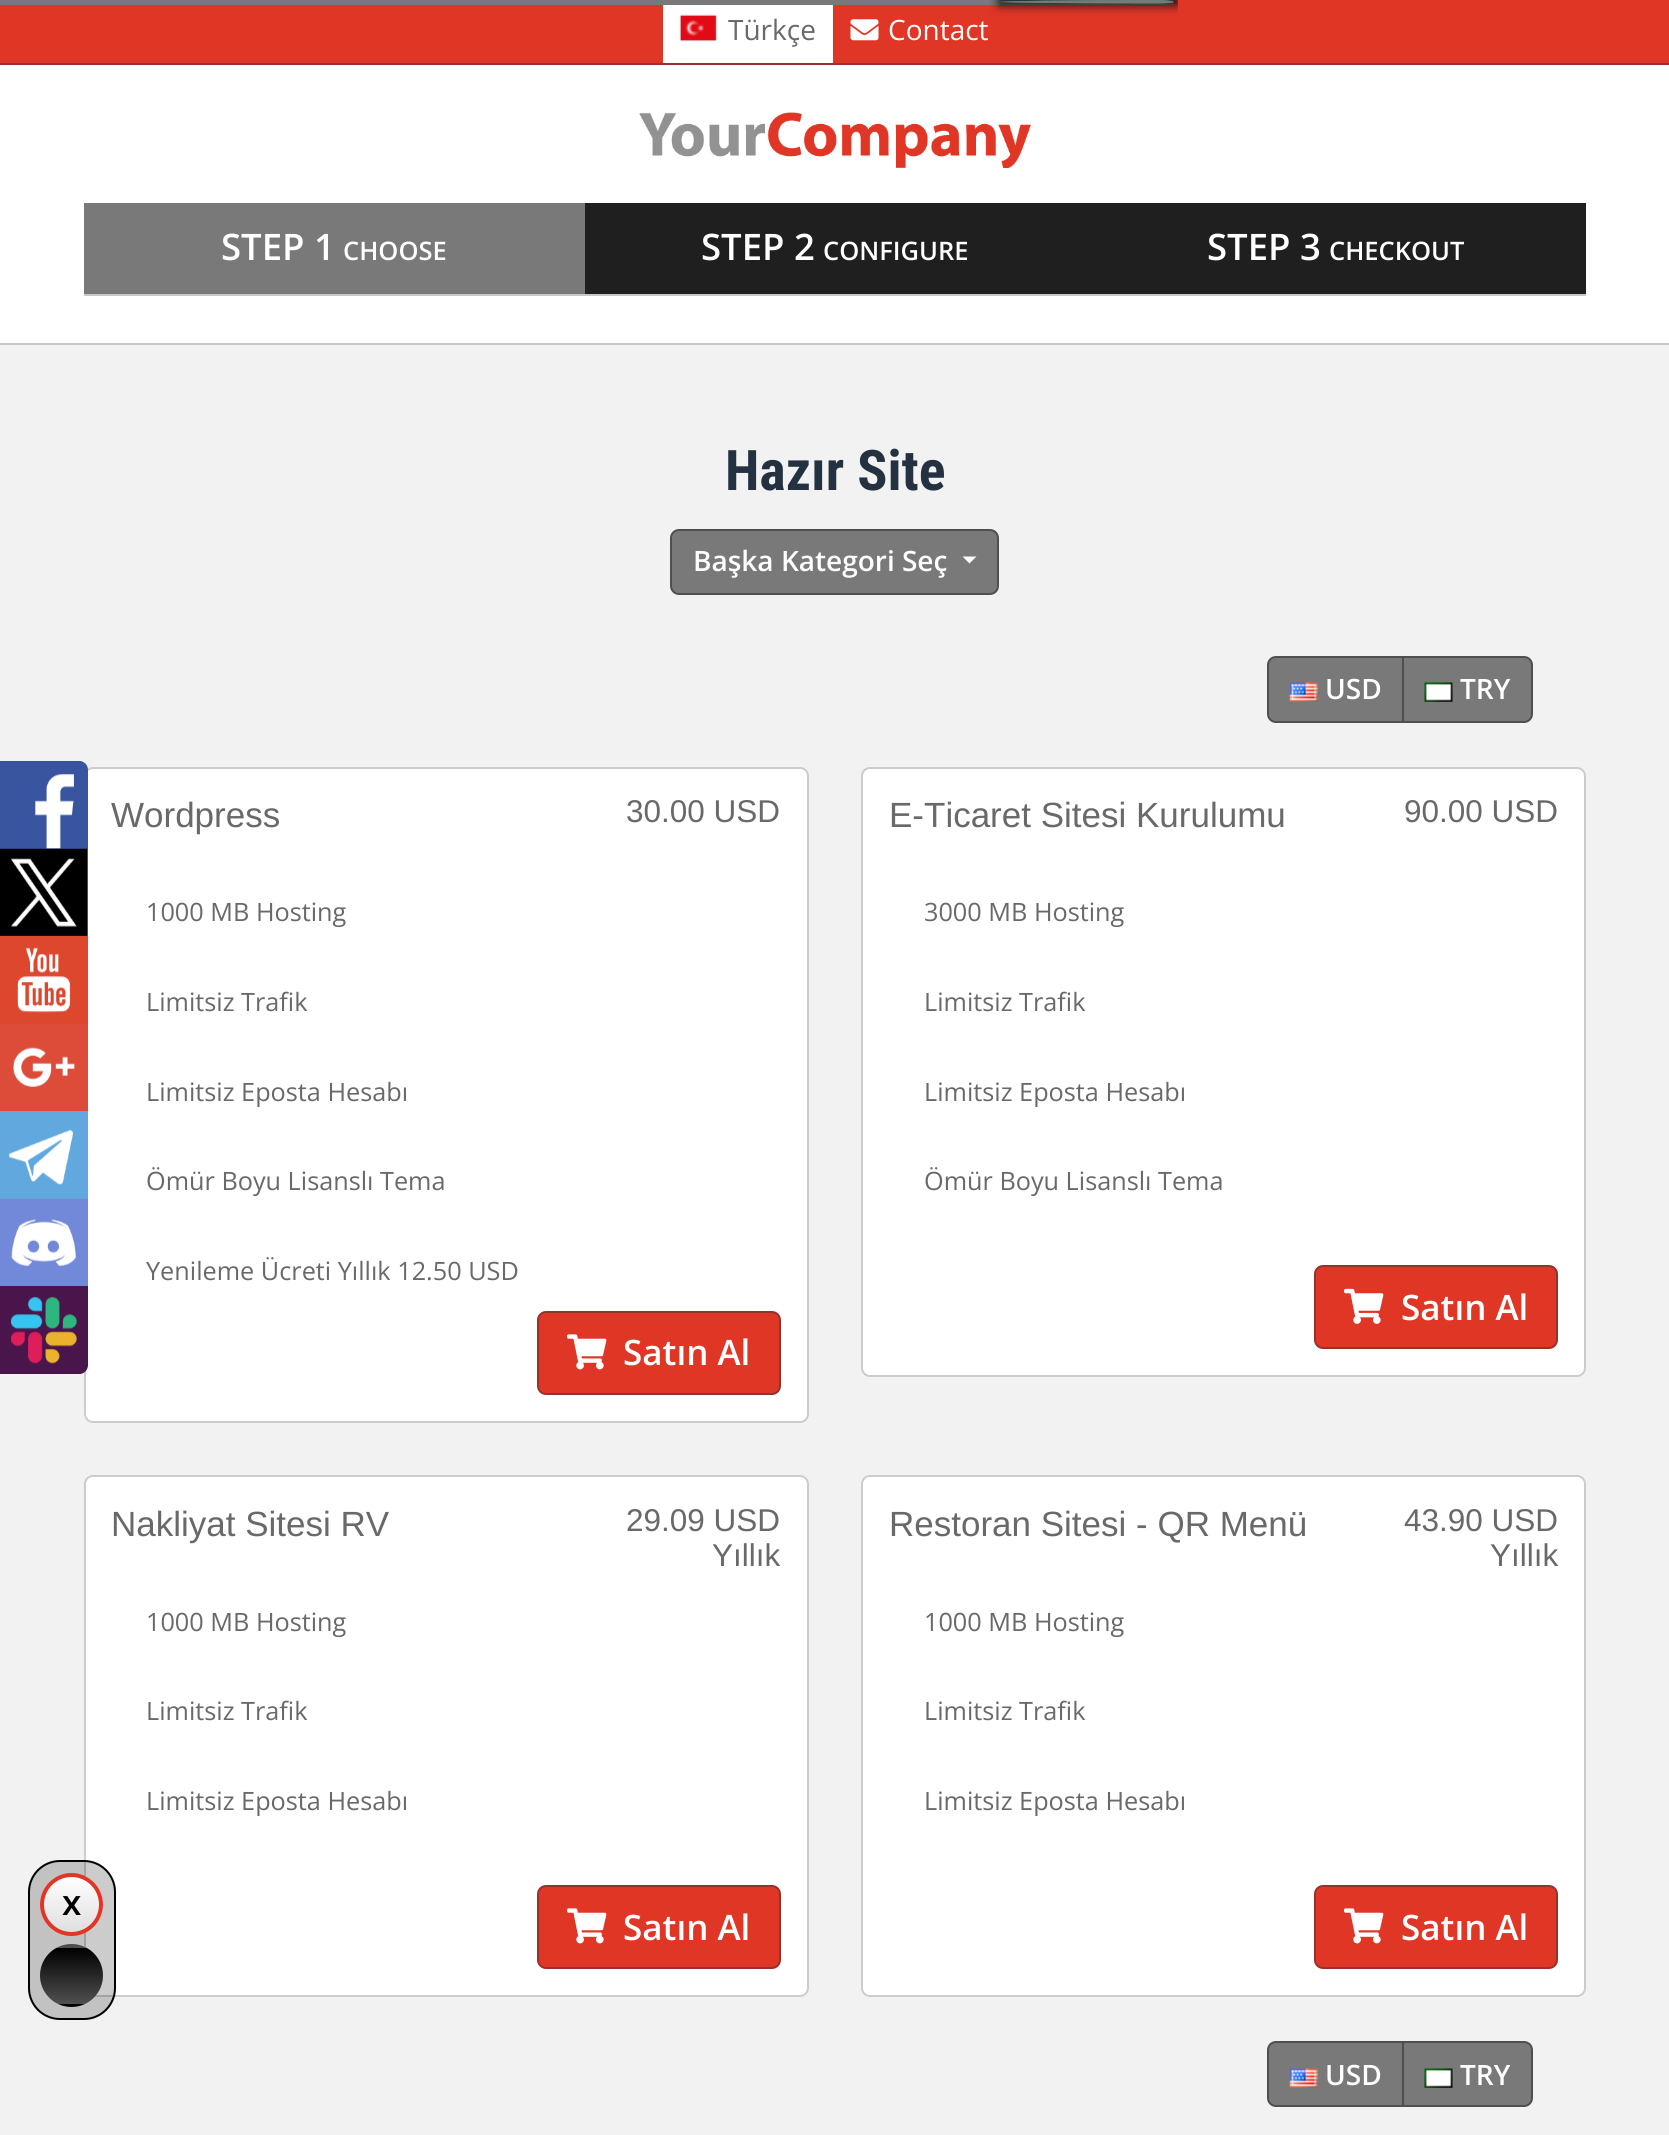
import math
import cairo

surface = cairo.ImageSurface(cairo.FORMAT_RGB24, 1669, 2135)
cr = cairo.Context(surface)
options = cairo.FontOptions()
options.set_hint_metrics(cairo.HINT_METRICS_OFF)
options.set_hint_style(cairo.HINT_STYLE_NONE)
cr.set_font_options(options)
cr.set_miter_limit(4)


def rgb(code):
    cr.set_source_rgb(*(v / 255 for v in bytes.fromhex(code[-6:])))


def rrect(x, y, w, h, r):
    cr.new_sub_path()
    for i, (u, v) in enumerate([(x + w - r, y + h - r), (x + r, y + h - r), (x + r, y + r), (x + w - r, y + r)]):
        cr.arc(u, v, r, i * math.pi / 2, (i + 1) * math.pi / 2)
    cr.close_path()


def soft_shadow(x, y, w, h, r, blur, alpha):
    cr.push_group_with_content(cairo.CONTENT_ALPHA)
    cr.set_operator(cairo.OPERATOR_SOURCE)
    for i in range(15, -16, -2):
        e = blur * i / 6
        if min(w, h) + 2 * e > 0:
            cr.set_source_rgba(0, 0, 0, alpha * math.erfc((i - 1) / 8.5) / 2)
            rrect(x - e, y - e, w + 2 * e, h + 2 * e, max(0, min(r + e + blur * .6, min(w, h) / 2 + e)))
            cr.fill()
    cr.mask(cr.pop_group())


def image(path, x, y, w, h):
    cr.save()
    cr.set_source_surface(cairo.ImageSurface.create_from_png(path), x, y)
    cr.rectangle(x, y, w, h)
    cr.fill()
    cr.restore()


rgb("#f2f2f2")
cr.paint()
rgb("#df3626")
cr.rectangle(0, 0, 1669, 63)
cr.fill()
rgb("#797979")
rrect(-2, 0, 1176, 5, 2)
cr.fill()
cr.save()
cr.rectangle(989, 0, 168, 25)
cr.clip()
cr.set_fill_rule(cairo.FILL_RULE_EVEN_ODD)
cr.new_path()
cr.move_to(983, 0)
cr.line_to(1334, 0)
cr.line_to(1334, 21)
cr.line_to(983, 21)
cr.close_path()
cr.move_to(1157, 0)
cr.curve_to(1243.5, 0, 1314, 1, 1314, 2)
cr.curve_to(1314, 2.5, 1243.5, 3.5, 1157, 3.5)
cr.curve_to(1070, 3.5, 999, 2.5, 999, 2)
cr.curve_to(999, 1, 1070, 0, 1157, 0)
cr.close_path()
cr.clip()
rgb("#0f1016")
soft_shadow(999, -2, 319, 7, 3.5, 5, 1)
cr.restore()
cr.save()
cr.rectangle(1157, 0, 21, 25)
cr.clip()
cr.set_fill_rule(cairo.FILL_RULE_EVEN_ODD)
cr.new_path()
cr.move_to(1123, 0)
cr.line_to(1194, 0)
cr.line_to(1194, 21)
cr.line_to(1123, 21)
cr.close_path()
cr.move_to(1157, 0)
cr.curve_to(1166.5, 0, 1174, 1, 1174, 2)
cr.curve_to(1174, 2.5, 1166.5, 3.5, 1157, 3.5)
cr.curve_to(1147, 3.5, 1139, 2.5, 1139, 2)
cr.curve_to(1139, 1, 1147, 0, 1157, 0)
cr.close_path()
cr.clip()
rgb("#0f1016")
soft_shadow(1139, -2, 39, 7, 3.5, 5, 1)
cr.restore()
rgb("#ffffff")
rrect(85, 1476, 723, 520, 8)
cr.fill_preserve()
rgb("#cccccc")
cr.stroke()
cr.set_source_rgba(0, 0, 0, 0.2)
rrect(29, 1861, 86, 158, 31)
cr.fill_preserve()
rgb("#000000")
cr.stroke()
cr.save()
rrect(40, 1873, 63, 63, 31.5)
cr.clip()
gradient = cairo.LinearGradient(72, 1876, 72, 1932)
gradient.add_color_stop_rgba(0, 1, 1, 1, 1)
gradient.add_color_stop_rgba(1, 0.875, 0.875, 0.875, 1)
cr.set_source(gradient)
cr.rectangle(40, 1876, 63, 56)
cr.fill()
cr.restore()
cr.arc(71.5, 1904.5, 29.5, 0, 2 * math.pi)
rgb("#df3626")
cr.set_line_width(4)
cr.stroke()
cr.save()
rrect(40, 1944, 63, 63, 31.5)
cr.clip()
gradient = cairo.LinearGradient(72, 1892, 72, 1948)
gradient.add_color_stop_rgba(0, 0, 0, 0, 1)
gradient.add_color_stop_rgba(1, 0.314, 0.314, 0.314, 1)
cr.set_source(gradient)
cr.rectangle(56, 1944, 31, 4)
cr.fill()
gradient = cairo.LinearGradient(72, 1948, 72, 2004)
gradient.add_color_stop_rgba(0, 0, 0, 0, 1)
gradient.add_color_stop_rgba(1, 0.314, 0.314, 0.314, 1)
cr.set_source(gradient)
cr.rectangle(40, 1948, 63, 56)
cr.fill()
gradient = cairo.LinearGradient(72, 2004, 72, 2060)
gradient.add_color_stop_rgba(0, 0, 0, 0, 1)
gradient.add_color_stop_rgba(1, 0.314, 0.314, 0.314, 1)
cr.set_source(gradient)
cr.rectangle(58, 2004, 27, 3)
cr.fill()
cr.restore()
rgb("#94332d")
cr.rectangle(0, 63, 1669, 2)
cr.fill()
rgb("#ffffff")
cr.rectangle(663, 5, 170, 58)
cr.fill()
rgb("#888888")
soft_shadow(681, 16, 35, 24, 0, 1, 1)
image("img/1.png", 680, 15, 36, 26)
image("img/2.png", 850, 19, 29, 22)
rgb("#ffffff")
cr.rectangle(0, 65, 1669, 278)
cr.fill()
rgb("#c7c7c7")
cr.rectangle(0, 343, 1669, 2)
cr.fill()
image("img/3.png", 639, 112, 392, 56)
for x, y, w, h, color in [
    (585, 203, 1001, 91, "#1f1f1f"),
    (84, 294, 1502, 2, "#c7c7c7"),
    (84, 203, 501, 91, "#797979"),
]:
    rgb(color)
    cr.rectangle(x, y, w, h)
    cr.fill()
rgb("#ffffff")
rrect(85, 768, 723, 654, 8)
cr.fill_preserve()
rgb("#cccccc")
cr.set_line_width(2)
cr.stroke()
rgb("#3a559f")
cr.new_path()
cr.move_to(0, 761)
cr.line_to(79, 761)
cr.curve_to(84, 761, 88, 765, 88, 770)
cr.line_to(88, 849)
cr.line_to(0, 849)
cr.close_path()
cr.fill()
image("img/4.png", 0, 761, 87, 88)
rgb("#50abf1")
cr.rectangle(0, 849, 88, 87)
cr.fill()
image("img/5.png", 0, 848, 88, 88)
rgb("#dc472e")
cr.rectangle(0, 936, 88, 88)
cr.fill()
image("img/6.png", 0, 947, 88, 77)
rgb("#dd4b39")
cr.rectangle(0, 1024, 88, 87)
cr.fill()
image("img/7.png", 0, 1047, 88, 64)
rgb("#61a8de")
cr.rectangle(0, 1111, 88, 88)
cr.fill()
image("img/8.png", 0, 1130, 88, 69)
rgb("#7289da")
cr.rectangle(0, 1199, 88, 87)
cr.fill()
image("img/9.png", 0, 1198, 88, 88)
rgb("#4a154b")
cr.new_path()
cr.move_to(0, 1286)
cr.line_to(88, 1286)
cr.line_to(88, 1365)
cr.curve_to(88, 1370, 84, 1374, 79, 1374)
cr.line_to(0, 1374)
cr.close_path()
cr.fill()
image("img/10.png", 11, 1296, 77, 78)
rgb("#797979")
rrect(671, 530, 327, 64, 8)
cr.fill_preserve()
rgb("#504f4f")
cr.stroke()
rgb("#ffffff")
cr.new_path()
cr.move_to(962.5, 556.5)
cr.line_to(976.5, 556.5)
cr.line_to(969.5, 563.5)
cr.close_path()
cr.fill()
rgb("#797979")
cr.new_path()
cr.move_to(1403, 657)
cr.line_to(1524, 657)
cr.curve_to(1528.5, 657, 1532, 660.5, 1532, 665)
cr.line_to(1532, 714)
cr.curve_to(1532, 718.5, 1528.5, 722, 1524, 722)
cr.line_to(1403, 722)
cr.close_path()
cr.fill_preserve()
rgb("#504f4f")
cr.stroke()
rgb("#797979")
cr.new_path()
cr.move_to(1276, 657)
cr.line_to(1403, 657)
cr.line_to(1403, 722)
cr.line_to(1276, 722)
cr.curve_to(1271.5, 722, 1268, 718.5, 1268, 714)
cr.line_to(1268, 665)
cr.curve_to(1268, 660.5, 1271.5, 657, 1276, 657)
cr.close_path()
cr.fill_preserve()
rgb("#504f4f")
cr.stroke()
image("img/11.png", 1289, 682, 29, 20)
image("img/12.png", 1424, 682, 29, 20)
rgb("#df3626")
rrect(538, 1312, 242, 82, 8)
cr.fill_preserve()
rgb("#94332d")
cr.stroke()
image("img/13.png", 567, 1334, 40, 36)
rgb("#ffffff")
rrect(862, 768, 723, 608, 8)
cr.fill_preserve()
rgb("#cccccc")
cr.stroke()
rgb("#df3626")
rrect(1315, 1266, 242, 82, 8)
cr.fill_preserve()
rgb("#94332d")
cr.stroke()
image("img/14.png", 1344, 1288, 40, 36)
rgb("#df3626")
rrect(538, 1886, 242, 82, 8)
cr.fill_preserve()
rgb("#94332d")
cr.stroke()
image("img/13.png", 567, 1908, 40, 36)
rgb("#ffffff")
rrect(862, 1476, 723, 520, 8)
cr.fill_preserve()
rgb("#cccccc")
cr.stroke()
rgb("#df3626")
rrect(1315, 1886, 242, 82, 8)
cr.fill_preserve()
rgb("#94332d")
cr.stroke()
image("img/13.png", 1344, 1908, 40, 36)
rgb("#797979")
cr.new_path()
cr.move_to(1403, 2042)
cr.line_to(1524, 2042)
cr.curve_to(1528.5, 2042, 1532, 2045.5, 1532, 2050)
cr.line_to(1532, 2098)
cr.curve_to(1532, 2102.5, 1528.5, 2106, 1524, 2106)
cr.line_to(1403, 2106)
cr.close_path()
cr.fill_preserve()
rgb("#504f4f")
cr.stroke()
rgb("#797979")
cr.new_path()
cr.move_to(1276, 2042)
cr.line_to(1403, 2042)
cr.line_to(1403, 2106)
cr.line_to(1276, 2106)
cr.curve_to(1271.5, 2106, 1268, 2102.5, 1268, 2098)
cr.line_to(1268, 2050)
cr.curve_to(1268, 2045.5, 1271.5, 2042, 1276, 2042)
cr.close_path()
cr.fill_preserve()
rgb("#504f4f")
cr.stroke()
image("img/11.png", 1289, 2068, 29, 20)
image("img/12.png", 1424, 2068, 29, 20)
cr.select_font_face("Open Sans SemiBold")
cr.set_font_size(35)
rgb("#000000")
cr.move_to(62, 1915)
cr.show_text("x")
cr.select_font_face("Open Sans")
cr.set_font_size(28)
rgb("#696969")
cr.move_to(728, 40)
cr.show_text("Türkçe")
rgb("#ffffff")
cr.move_to(888, 40)
cr.show_text("Contact")
cr.select_font_face("Open Sans SemiBold")
cr.set_font_size(36.5)
cr.move_to(221, 260)
cr.show_text("STEP 1")
cr.set_font_size(25.5)
cr.move_to(343, 260)
cr.show_text("CHOOSE")
cr.set_font_size(36.5)
cr.move_to(701, 260)
cr.show_text("STEP 2")
cr.set_font_size(25.5)
cr.move_to(823, 260)
cr.show_text("CONFIGURE")
cr.set_font_size(36.5)
cr.move_to(1207, 260)
cr.show_text("STEP 3")
cr.set_font_size(25.5)
cr.move_to(1329, 260)
cr.show_text("CHECKOUT")
cr.select_font_face("Roboto Condensed", cairo.FONT_SLANT_NORMAL, cairo.FONT_WEIGHT_BOLD)
cr.set_font_size(56)
rgb("#243141")
cr.move_to(725, 490)
cr.show_text("Hazır Site")
cr.select_font_face("Open Sans SemiBold")
cr.set_font_size(28)
rgb("#ffffff")
for x, y, s in [
    (693, 571, "Başka Kategori Seç"),
    (1325, 699, "USD"),
    (1460, 699, "TRY"),
]:
    cr.move_to(x, y)
    cr.show_text(s)
cr.select_font_face("Liberation Sans")
cr.set_font_size(35)
rgb("#696969")
cr.move_to(111, 827)
cr.show_text("Wordpress")
cr.set_font_size(31.5)
cr.move_to(626, 822)
cr.show_text("30.00 USD")
cr.select_font_face("Open Sans")
cr.set_font_size(25.25)
for x, y, s in [
    (146, 921, "1000 MB Hosting"),
    (146, 1011, "Limitsiz Trafik"),
    (146, 1101, "Limitsiz Eposta Hesabı"),
    (146, 1190, "Ömür Boyu Lisanslı Tema"),
    (146, 1280, "Yenileme Ücreti Yıllık 12.50 USD"),
]:
    cr.move_to(x, y)
    cr.show_text(s)
cr.select_font_face("Open Sans SemiBold")
cr.set_font_size(35)
rgb("#ffffff")
cr.move_to(623, 1365)
cr.show_text("Satın Al")
cr.select_font_face("Liberation Sans")
rgb("#696969")
cr.move_to(889, 827)
cr.show_text("E-Ticaret Sitesi Kurulumu")
cr.set_font_size(31.5)
cr.move_to(1404, 822)
cr.show_text("90.00 USD")
cr.select_font_face("Open Sans")
cr.set_font_size(25.25)
for x, y, s in [
    (924, 921, "3000 MB Hosting"),
    (924, 1011, "Limitsiz Trafik"),
    (924, 1101, "Limitsiz Eposta Hesabı"),
    (924, 1190, "Ömür Boyu Lisanslı Tema"),
]:
    cr.move_to(x, y)
    cr.show_text(s)
cr.select_font_face("Open Sans SemiBold")
cr.set_font_size(35)
rgb("#ffffff")
cr.move_to(1401, 1320)
cr.show_text("Satın Al")
cr.select_font_face("Liberation Sans")
rgb("#696969")
cr.move_to(111, 1536)
cr.show_text("Nakliyat Sitesi RV")
cr.set_font_size(31.5)
cr.move_to(626, 1531)
cr.show_text("29.09 USD")
cr.move_to(712, 1566)
cr.show_text("Yıllık")
cr.select_font_face("Open Sans")
cr.set_font_size(25.25)
for x, y, s in [
    (146, 1631, "1000 MB Hosting"),
    (146, 1720, "Limitsiz Trafik"),
    (146, 1810, "Limitsiz Eposta Hesabı"),
]:
    cr.move_to(x, y)
    cr.show_text(s)
cr.select_font_face("Open Sans SemiBold")
cr.set_font_size(35)
rgb("#ffffff")
cr.move_to(623, 1940)
cr.show_text("Satın Al")
cr.select_font_face("Liberation Sans")
rgb("#696969")
cr.move_to(889, 1536)
cr.show_text("Restoran Sitesi - QR Menü")
cr.set_font_size(31.5)
cr.move_to(1404, 1531)
cr.show_text("43.90 USD")
cr.move_to(1490, 1566)
cr.show_text("Yıllık")
cr.select_font_face("Open Sans")
cr.set_font_size(25.25)
for x, y, s in [
    (924, 1631, "1000 MB Hosting"),
    (924, 1720, "Limitsiz Trafik"),
    (924, 1810, "Limitsiz Eposta Hesabı"),
]:
    cr.move_to(x, y)
    cr.show_text(s)
cr.select_font_face("Open Sans SemiBold")
cr.set_font_size(35)
rgb("#ffffff")
cr.move_to(1401, 1940)
cr.show_text("Satın Al")
cr.set_font_size(28)
cr.move_to(1325, 2085)
cr.show_text("USD")
cr.move_to(1460, 2085)
cr.show_text("TRY")
surface.write_to_png("page.png")
